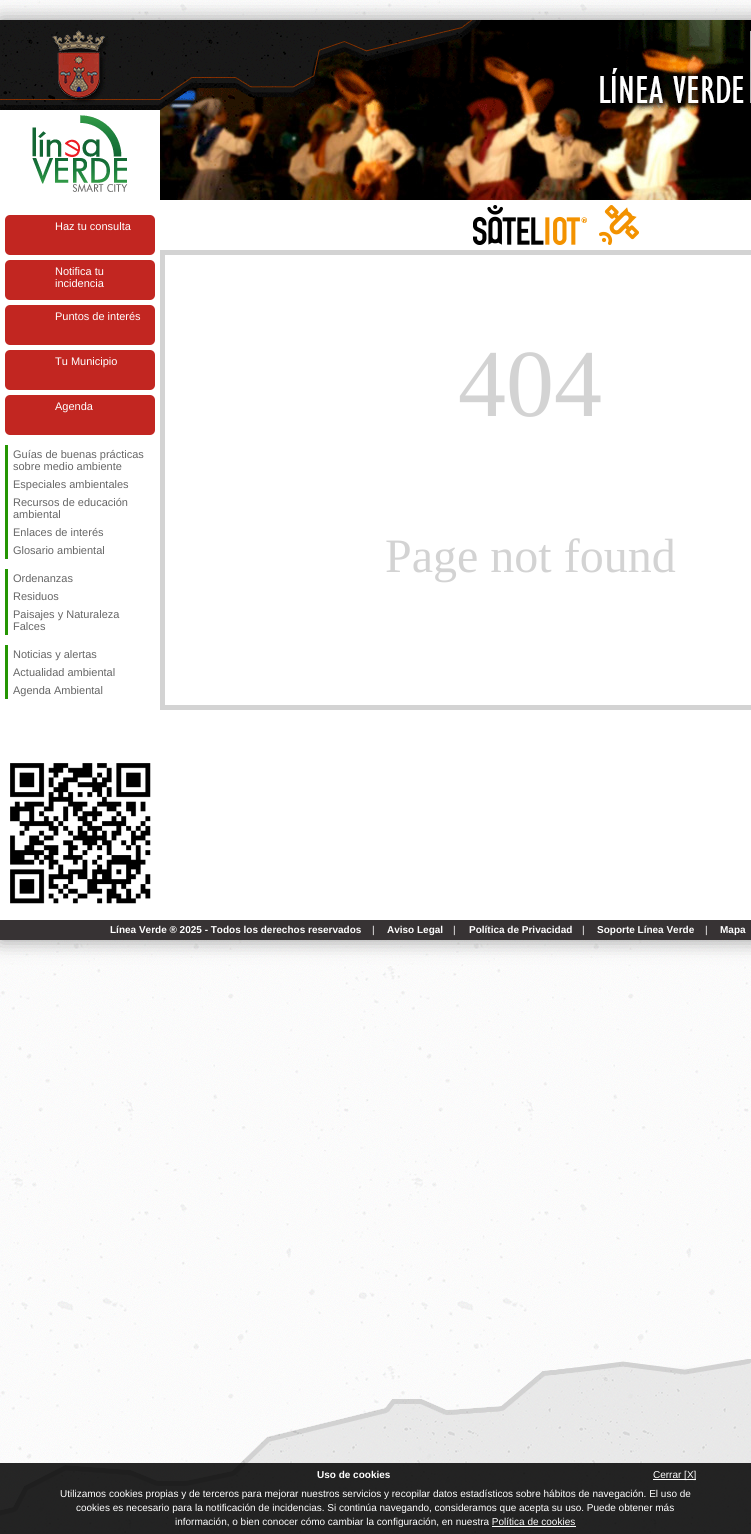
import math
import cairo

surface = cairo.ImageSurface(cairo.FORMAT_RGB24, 751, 1534)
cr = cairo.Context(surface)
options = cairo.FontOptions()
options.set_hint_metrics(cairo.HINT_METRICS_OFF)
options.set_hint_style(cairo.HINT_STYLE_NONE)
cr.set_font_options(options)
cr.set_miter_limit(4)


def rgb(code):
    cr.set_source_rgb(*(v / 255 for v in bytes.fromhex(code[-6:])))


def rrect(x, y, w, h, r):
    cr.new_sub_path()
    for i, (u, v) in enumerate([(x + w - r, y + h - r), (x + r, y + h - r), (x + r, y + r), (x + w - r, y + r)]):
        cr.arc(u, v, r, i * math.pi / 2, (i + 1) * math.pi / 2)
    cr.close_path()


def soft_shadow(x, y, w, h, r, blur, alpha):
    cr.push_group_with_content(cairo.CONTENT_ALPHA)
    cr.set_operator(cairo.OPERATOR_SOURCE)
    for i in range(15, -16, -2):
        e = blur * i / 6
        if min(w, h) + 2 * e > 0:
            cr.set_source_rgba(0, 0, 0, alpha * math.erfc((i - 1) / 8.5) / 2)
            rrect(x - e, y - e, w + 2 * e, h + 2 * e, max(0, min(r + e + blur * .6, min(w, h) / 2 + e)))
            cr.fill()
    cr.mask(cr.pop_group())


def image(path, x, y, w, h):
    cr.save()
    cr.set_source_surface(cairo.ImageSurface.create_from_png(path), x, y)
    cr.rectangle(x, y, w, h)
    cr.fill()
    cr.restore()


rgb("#ffffff")
cr.paint()
image("img/1.png", 0, 0, 751, 1534)
rgb("#000000")
soft_shadow(0, 20, 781, 920, 0, 10, 0.4)
rgb("#ffffff")
cr.rectangle(0, 110, 751, 810)
cr.fill()
image("img/2.png", 0, 20, 751, 90)
image("img/3.png", 32, 115, 96, 77)
image("img/4.png", 160, 110, 591, 90)
image("img/5.png", 473, 205, 166, 40)
rgb("#c22621")
rrect(5, 215, 150, 40, 5)
cr.fill()
rrect(5, 260, 150, 40, 5)
cr.fill()
rrect(5, 305, 150, 40, 5)
cr.fill()
rrect(5, 350, 150, 40, 5)
cr.fill()
rrect(5, 395, 150, 40, 5)
cr.fill()
for x, y, w, h, color in [
    (5, 445, 3, 114, "#259603"),
    (5, 569, 3, 66, "#259603"),
    (5, 645, 3, 54, "#259603"),
]:
    rgb(color)
    cr.rectangle(x, y, w, h)
    cr.fill()
image("img/6.png", 10, 763, 141, 141)
cr.rectangle(162.5, 252.5, 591, 455)
rgb("#d3d3d3")
cr.set_line_width(5)
cr.stroke()
rgb("#373334")
cr.rectangle(0, 920, 751, 20)
cr.fill()
cr.set_source_rgba(0, 0, 0, 0.85)
cr.rectangle(0, 1463, 751, 71)
cr.fill()
rgb("#ffffff")
cr.rectangle(653, 1479, 43, 1)
cr.rectangle(492, 1526, 84, 1)
cr.fill()
cr.select_font_face("Liberation Sans")
cr.set_font_size(11)
for x, y, s in [
    (55, 230, "Haz tu consulta"),
    (55, 275, "Notifica tu"),
    (55, 287, "incidencia"),
    (55, 320, "Puntos de interés"),
    (55, 365, "Tu Municipio"),
    (55, 410, "Agenda"),
]:
    cr.move_to(x, y)
    cr.show_text(s)
rgb("#666666")
for x, y, s in [
    (13, 458, "Guías de buenas prácticas"),
    (13, 470, "sobre medio ambiente"),
    (13, 488, "Especiales ambientales"),
    (13, 506, "Recursos de educación"),
    (13, 518, "ambiental"),
    (13, 536, "Enlaces de interés"),
    (13, 554, "Glosario ambiental"),
    (13, 582, "Ordenanzas"),
    (13, 600, "Residuos"),
    (13, 618, "Paisajes y Naturaleza"),
    (13, 630, "Falces"),
    (13, 658, "Noticias y alertas"),
    (13, 676, "Actualidad ambiental"),
    (13, 694, "Agenda Ambiental"),
]:
    cr.move_to(x, y)
    cr.show_text(s)
cr.select_font_face("Liberation Serif")
cr.set_font_size(96)
rgb("#d3d3d3")
cr.move_to(458, 416)
cr.show_text("404")
cr.set_font_size(48)
cr.move_to(385, 572)
cr.show_text("Page not found")
cr.select_font_face("Liberation Sans", cairo.FONT_SLANT_NORMAL, cairo.FONT_WEIGHT_BOLD)
cr.set_font_size(10)
rgb("#ffffff")
cr.move_to(110, 933)
cr.show_text("Línea Verde ® 2025 - Todos los derechos reservados")
cr.select_font_face("Liberation Sans")
cr.move_to(372, 933)
cr.show_text("|")
cr.select_font_face("Liberation Sans", cairo.FONT_SLANT_NORMAL, cairo.FONT_WEIGHT_BOLD)
cr.move_to(387, 933)
cr.show_text("Aviso Legal")
cr.select_font_face("Liberation Sans")
cr.move_to(453, 933)
cr.show_text("|")
cr.select_font_face("Liberation Sans", cairo.FONT_SLANT_NORMAL, cairo.FONT_WEIGHT_BOLD)
cr.move_to(469, 933)
cr.show_text("Política de Privacidad")
cr.select_font_face("Liberation Sans")
cr.move_to(582, 933)
cr.show_text("|")
cr.select_font_face("Liberation Sans", cairo.FONT_SLANT_NORMAL, cairo.FONT_WEIGHT_BOLD)
cr.move_to(597, 933)
cr.show_text("Soporte Línea Verde")
cr.select_font_face("Liberation Sans")
cr.move_to(705, 933)
cr.show_text("|")
cr.select_font_face("Liberation Sans", cairo.FONT_SLANT_NORMAL, cairo.FONT_WEIGHT_BOLD)
cr.move_to(720, 933)
cr.show_text("Mapa")
cr.move_to(317, 1478)
cr.show_text("Uso de cookies")
cr.select_font_face("Liberation Sans")
for x, y, s in [
    (653, 1478, "Cerrar [X]"),
    (60, 1497, "Utilizamos cookies propias y de terceros para mejorar nuestros servicios y recopilar datos estadísticos sobre hábitos de navegación. El uso de"),
    (76, 1511, "cookies es necesario para la notificación de incidencias. Si continúa navegando, consideramos que acepta su uso. Puede obtener más"),
    (175, 1525, "información, o bien conocer cómo cambiar la configuración, en nuestra Política de cookies"),
]:
    cr.move_to(x, y)
    cr.show_text(s)
surface.write_to_png("page.png")
